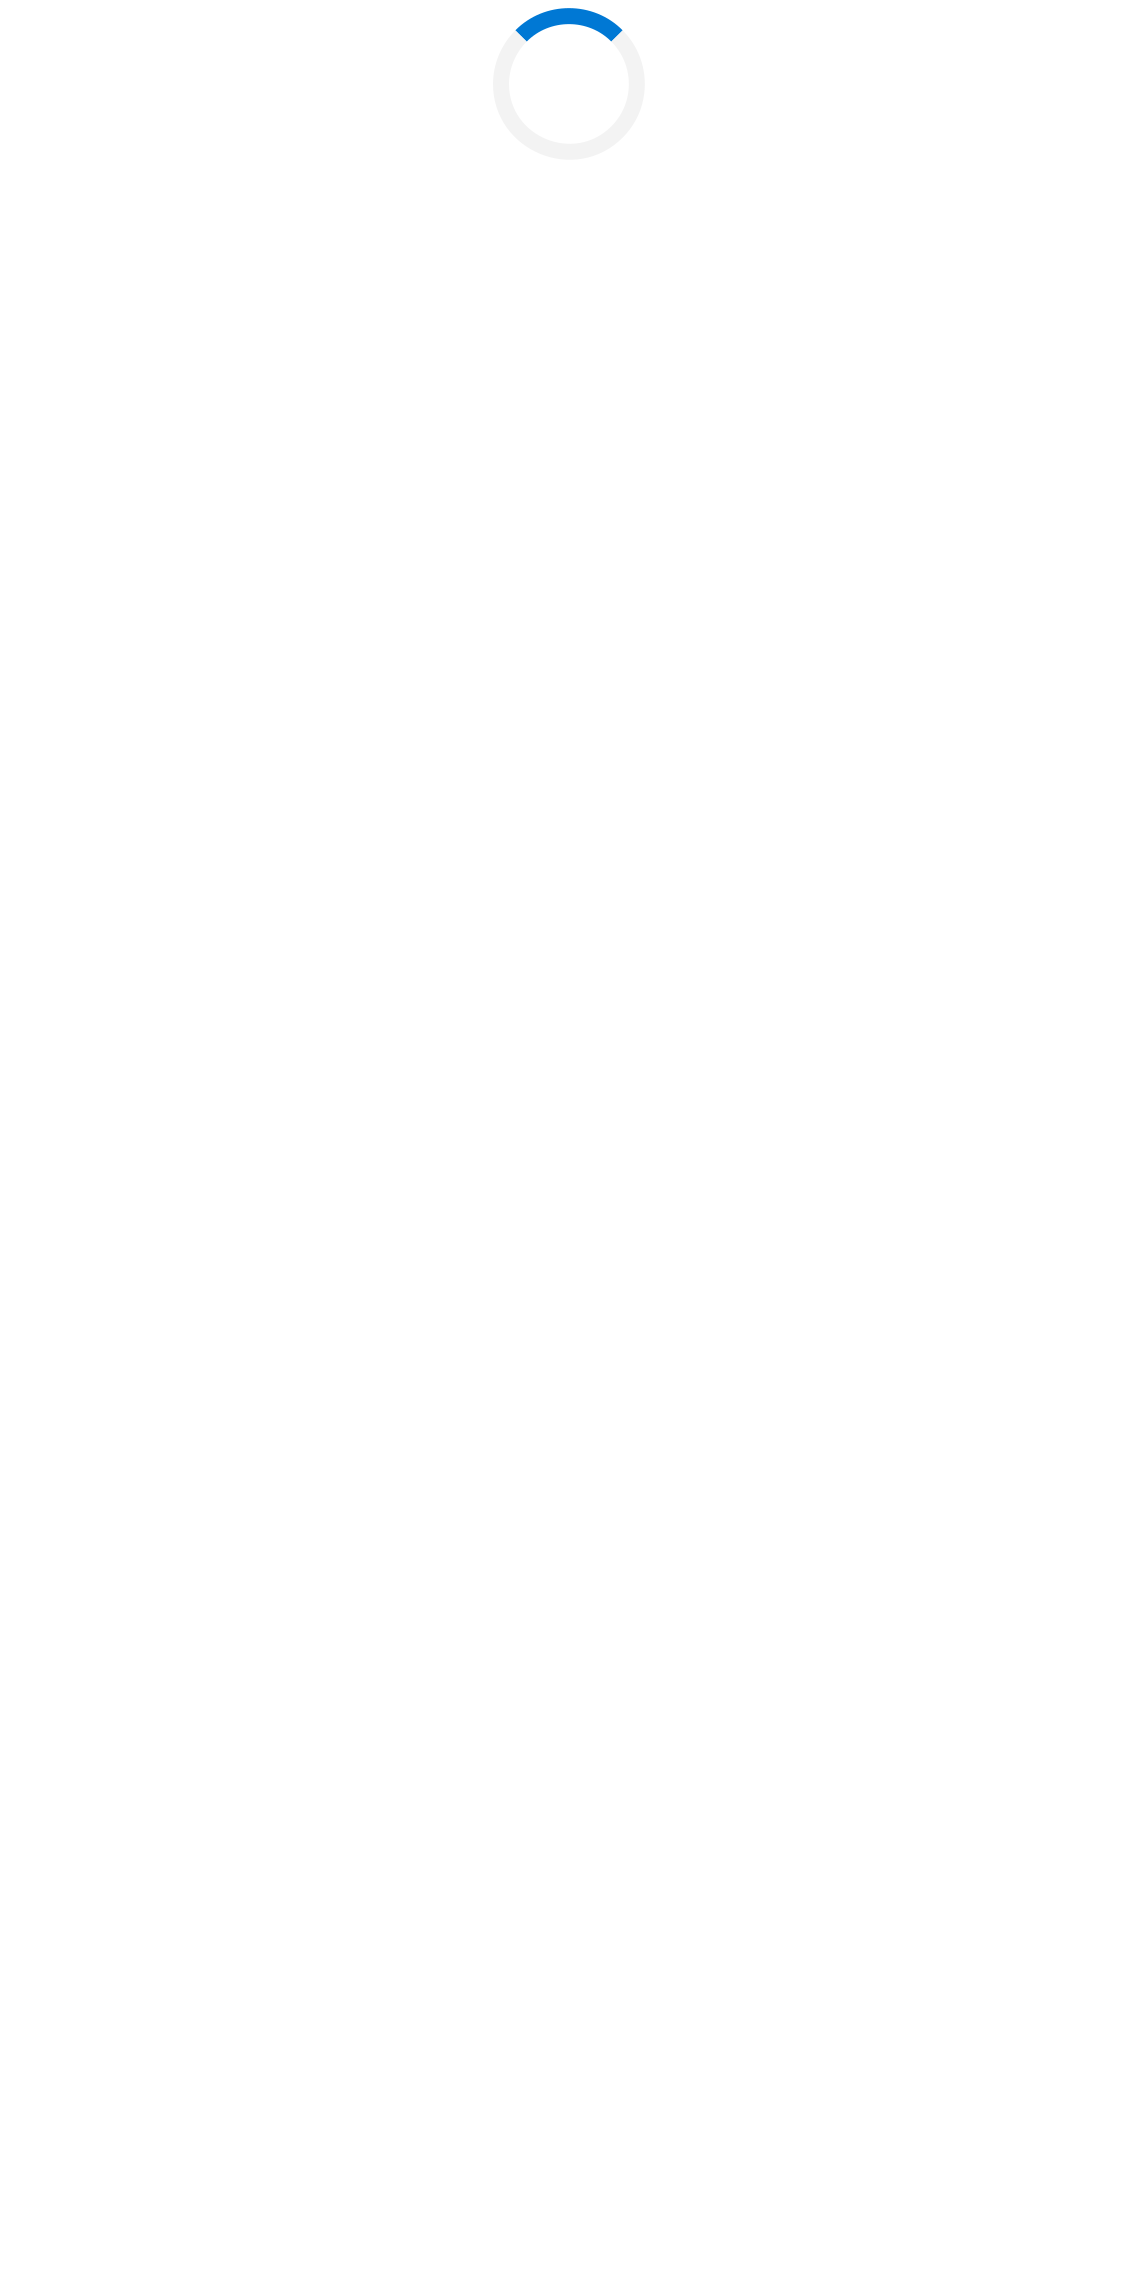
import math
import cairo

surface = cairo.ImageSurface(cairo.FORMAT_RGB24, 1137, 2293)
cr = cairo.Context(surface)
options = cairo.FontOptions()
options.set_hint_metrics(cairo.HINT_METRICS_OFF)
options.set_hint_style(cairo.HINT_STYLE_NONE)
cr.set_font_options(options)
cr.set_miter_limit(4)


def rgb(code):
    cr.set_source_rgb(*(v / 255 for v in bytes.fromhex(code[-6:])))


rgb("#ffffff")
cr.paint()
cr.new_path()
cr.move_to(521, 36)
cr.curve_to(547, 9.5, 591, 9.5, 617, 36)
rgb("#0078d4")
cr.set_line_width(16)
cr.stroke()
cr.new_path()
cr.move_to(617, 36)
cr.curve_to(633, 52, 640, 75, 635.5, 97.5)
cr.curve_to(633, 110.5, 626.5, 122.5, 617, 132)
cr.curve_to(574.5, 174.5, 501, 144, 501, 84)
cr.curve_to(501, 66, 508.5, 48.5, 521, 36)
rgb("#f3f3f3")
cr.stroke()
surface.write_to_png("page.png")
